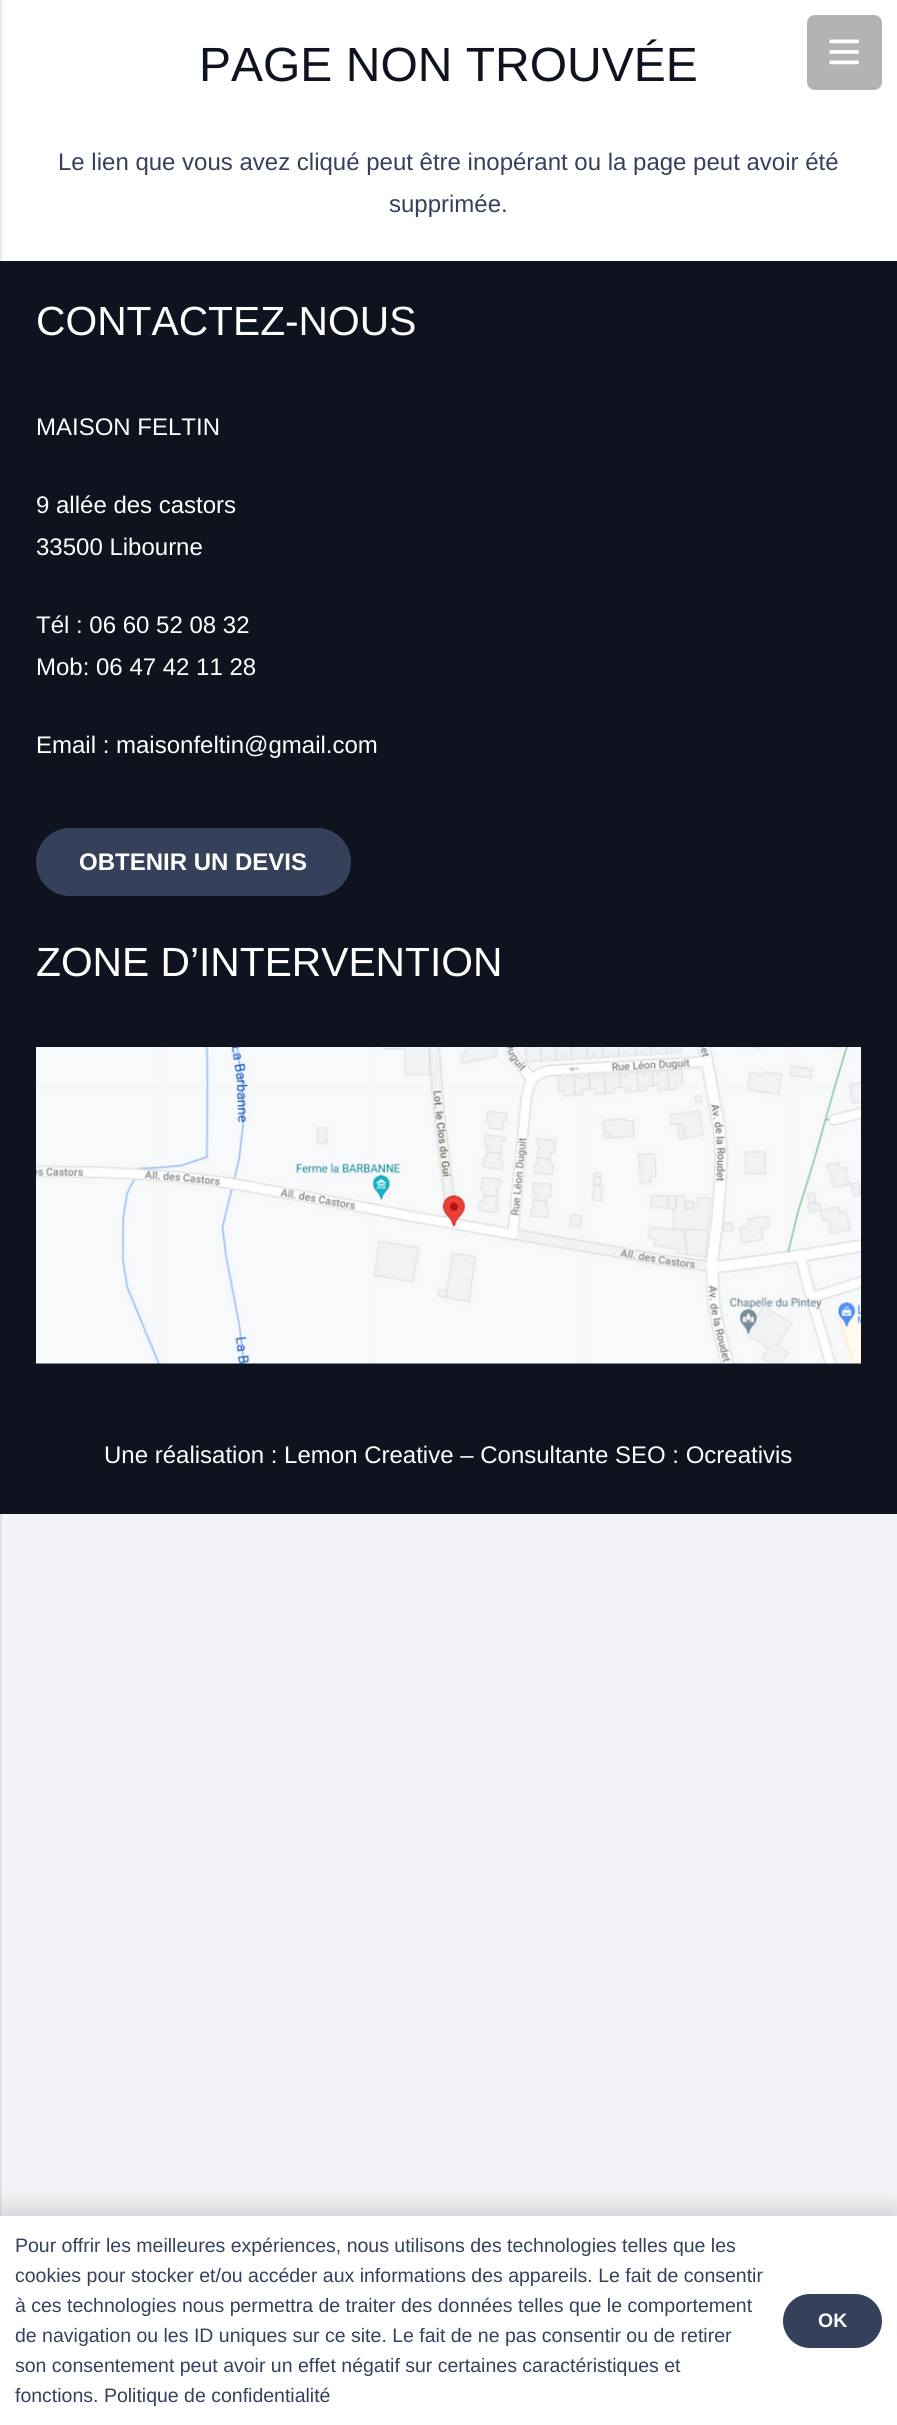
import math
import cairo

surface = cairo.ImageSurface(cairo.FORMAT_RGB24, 897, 2425)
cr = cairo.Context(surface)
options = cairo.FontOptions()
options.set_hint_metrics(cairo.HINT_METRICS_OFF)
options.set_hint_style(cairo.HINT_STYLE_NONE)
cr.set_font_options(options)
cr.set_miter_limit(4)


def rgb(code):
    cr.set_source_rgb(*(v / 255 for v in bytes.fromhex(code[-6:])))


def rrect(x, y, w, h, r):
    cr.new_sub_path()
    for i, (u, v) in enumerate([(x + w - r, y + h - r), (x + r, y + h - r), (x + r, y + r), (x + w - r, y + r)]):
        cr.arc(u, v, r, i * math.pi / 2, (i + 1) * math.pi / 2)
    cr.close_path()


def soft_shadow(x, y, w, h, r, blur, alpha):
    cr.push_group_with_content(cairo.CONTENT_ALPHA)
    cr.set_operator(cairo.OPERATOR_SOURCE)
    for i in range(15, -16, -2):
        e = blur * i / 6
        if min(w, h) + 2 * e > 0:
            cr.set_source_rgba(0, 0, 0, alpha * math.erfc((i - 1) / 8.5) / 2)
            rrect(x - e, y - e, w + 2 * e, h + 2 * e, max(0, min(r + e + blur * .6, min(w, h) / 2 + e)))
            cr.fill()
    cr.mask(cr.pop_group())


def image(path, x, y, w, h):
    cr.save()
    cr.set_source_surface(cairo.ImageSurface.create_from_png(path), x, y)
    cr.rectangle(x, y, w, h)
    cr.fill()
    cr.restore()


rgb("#f2f4f7")
cr.paint()
rgb("#ffffff")
cr.rectangle(0, 0, 897, 261)
cr.fill()
rgb("#0f131f")
cr.rectangle(0, 261, 897, 1253)
cr.fill()
cr.set_source_rgba(0, 0, 0, 0.08)
cr.new_path()
cr.move_to(-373, 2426)
cr.line_to(2, 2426)
cr.line_to(2, 0)
cr.line_to(0, 0)
cr.line_to(0, 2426)
cr.close_path()
cr.fill()
rgb("#b3b3b3")
rrect(807, 15, 75, 75, 8)
cr.fill()
image("img/1.png", 829, 39, 30, 26)
rgb("#35415b")
rrect(36, 828, 315, 68, 34)
cr.fill()
image("img/2.png", 36, 1047, 825, 317)
rgb("#000000")
soft_shadow(0, 2208, 897, 210, 0, 11, 0.15)
rgb("#ffffff")
cr.rectangle(0, 2216, 897, 209)
cr.fill()
rgb("#35415b")
rrect(783, 2294, 99, 54, 27)
cr.fill()
cr.select_font_face("Liberation Sans")
cr.set_font_size(48)
rgb("#0f131f")
cr.move_to(199, 81)
cr.show_text("PAGE NON TROUVÉE")
cr.set_font_size(24)
rgb("#35415b")
cr.move_to(58, 170)
cr.show_text("Le lien que vous avez cliqué peut être inopérant ou la page peut avoir été")
cr.move_to(389, 212)
cr.show_text("supprimée.")
cr.set_font_size(40.75)
rgb("#ffffff")
cr.move_to(36, 335)
cr.show_text("CONTACTEZ-NOUS")
cr.set_font_size(24)
for x, y, s in [
    (36, 435, "MAISON FELTIN"),
    (36, 513, "9 allée des castors"),
    (36, 555, "33500 Libourne"),
    (36, 633, "Tél : 06 60 52 08 32"),
    (36, 675, "Mob: 06 47 42 11 28"),
    (36, 753, "Email : maisonfeltin@gmail.com"),
]:
    cr.move_to(x, y)
    cr.show_text(s)
cr.select_font_face("Liberation Sans", cairo.FONT_SLANT_NORMAL, cairo.FONT_WEIGHT_BOLD)
cr.move_to(79, 870)
cr.show_text("OBTENIR UN DEVIS")
cr.select_font_face("Liberation Sans")
cr.set_font_size(40.75)
cr.move_to(36, 976)
cr.show_text("ZONE D’INTERVENTION")
cr.set_font_size(24)
cr.move_to(104, 1463)
cr.show_text("Une réalisation : Lemon Creative – Consultante SEO : Ocreativis")
cr.set_font_size(19.5)
rgb("#35415b")
for x, y, s in [
    (15, 2252, "Pour offrir les meilleures expériences, nous utilisons des technologies telles que les"),
    (15, 2282, "cookies pour stocker et/ou accéder aux informations des appareils. Le fait de consentir"),
    (15, 2312, "à ces technologies nous permettra de traiter des données telles que le comportement"),
    (15, 2342, "de navigation ou les ID uniques sur ce site. Le fait de ne pas consentir ou de retirer"),
    (15, 2372, "son consentement peut avoir un effet négatif sur certaines caractéristiques et"),
    (15, 2402, "fonctions. Politique de confidentialité"),
]:
    cr.move_to(x, y)
    cr.show_text(s)
cr.select_font_face("Liberation Sans", cairo.FONT_SLANT_NORMAL, cairo.FONT_WEIGHT_BOLD)
rgb("#ffffff")
cr.move_to(818, 2327)
cr.show_text("OK")
surface.write_to_png("page.png")
